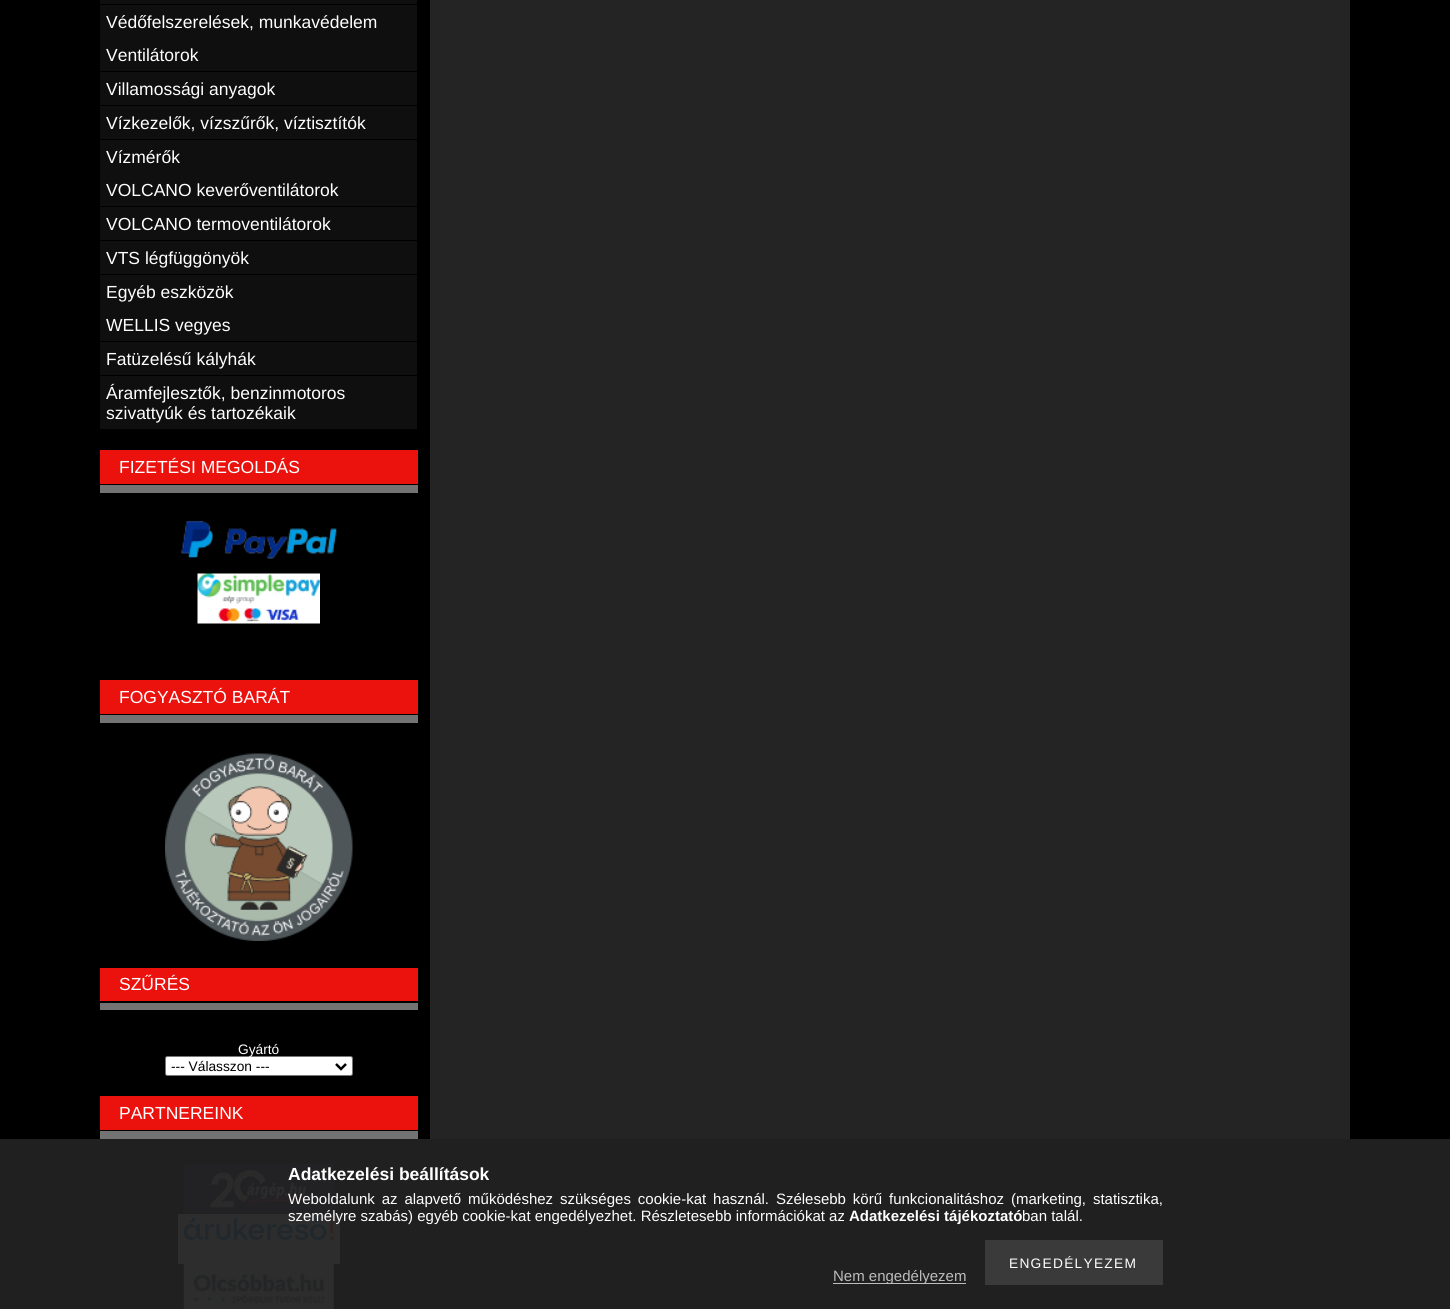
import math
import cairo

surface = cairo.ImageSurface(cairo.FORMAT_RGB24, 1450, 1309)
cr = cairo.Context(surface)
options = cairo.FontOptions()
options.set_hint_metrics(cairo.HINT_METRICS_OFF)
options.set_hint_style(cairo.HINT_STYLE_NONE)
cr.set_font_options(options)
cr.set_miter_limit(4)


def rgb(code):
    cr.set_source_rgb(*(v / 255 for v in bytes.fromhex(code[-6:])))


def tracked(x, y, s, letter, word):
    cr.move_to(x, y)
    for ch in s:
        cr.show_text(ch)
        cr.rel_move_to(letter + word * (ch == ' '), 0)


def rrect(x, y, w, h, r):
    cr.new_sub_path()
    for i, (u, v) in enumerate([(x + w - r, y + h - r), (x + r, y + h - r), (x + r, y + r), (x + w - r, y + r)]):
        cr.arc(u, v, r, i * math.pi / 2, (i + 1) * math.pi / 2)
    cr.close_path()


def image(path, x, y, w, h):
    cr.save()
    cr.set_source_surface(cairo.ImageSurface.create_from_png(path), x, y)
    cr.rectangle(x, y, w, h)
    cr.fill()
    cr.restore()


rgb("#000000")
cr.paint()
for x, y, w, h, color in [
    (0, 1139, 1450, 170, "#202020"),
    (430, 0, 920, 1139, "#242424"),
    (100, 0, 317, 4, "#0f0f0f"),
    (100, 5, 317, 66, "#0f0f0f"),
    (100, 72, 317, 33, "#0f0f0f"),
    (100, 106, 317, 33, "#0f0f0f"),
    (100, 140, 317, 66, "#0f0f0f"),
    (100, 207, 317, 33, "#0f0f0f"),
    (100, 241, 317, 33, "#0f0f0f"),
    (100, 275, 317, 66, "#0f0f0f"),
    (100, 342, 317, 33, "#0f0f0f"),
    (100, 376, 317, 53, "#0f0f0f"),
    (100, 450, 318, 34, "#eb120d"),
    (100, 485, 318, 8, "#737373"),
]:
    rgb(color)
    cr.rectangle(x, y, w, h)
    cr.fill()
image("img/1.png", 181, 520, 156, 39)
image("img/2.png", 197, 573, 123, 51)
rgb("#eb120d")
cr.rectangle(100, 680, 318, 34)
cr.fill()
rgb("#737373")
cr.rectangle(100, 715, 318, 8)
cr.fill()
image("img/3.png", 165, 753, 188, 188)
rgb("#eb120d")
cr.rectangle(100, 968, 318, 33)
cr.fill()
rgb("#737373")
cr.rectangle(100, 1003, 318, 7)
cr.fill()
rgb("#ffffff")
rrect(165.5, 1056.5, 187, 19, 2)
cr.fill_preserve()
rgb("#767676")
cr.set_line_width(1)
cr.stroke()
cr.new_path()
cr.move_to(336, 1064)
cr.line_to(341, 1069)
cr.line_to(346, 1064)
rgb("#000000")
cr.set_line_width(2.5)
cr.stroke()
rgb("#eb120d")
cr.rectangle(100, 1096, 318, 34)
cr.fill()
rgb("#737373")
cr.rectangle(100, 1131, 318, 8)
cr.fill()
image("img/4.png", 183, 1163, 151, 51)
rgb("#2d2d2d")
cr.rectangle(178, 1214, 162, 50)
cr.fill()
image("img/5.png", 184, 1218, 150, 22)
image("img/6.png", 183, 1264, 151, 45)
rgb("#3a3a3a")
cr.rectangle(985, 1240, 178, 45)
cr.fill()
rgb("#bdbdbd")
cr.rectangle(833, 1283, 133, 1)
cr.fill()
cr.select_font_face("Liberation Sans")
cr.set_font_size(17.5)
rgb("#ffffff")
for x, y, s in [
    (106, 28, "Védőfelszerelések, munkavédelem"),
    (106, 61, "Ventilátorok"),
    (106, 95, "Villamossági anyagok"),
    (106, 129, "Vízkezelők, vízszűrők, víztisztítók"),
    (106, 163, "Vízmérők"),
    (106, 196, "VOLCANO keverőventilátorok"),
    (106, 230, "VOLCANO termoventilátorok"),
    (106, 264, "VTS légfüggönyök"),
    (106, 298, "Egyéb eszközök"),
    (106, 331, "WELLIS vegyes"),
    (106, 365, "Fatüzelésű kályhák"),
    (106, 399, "Áramfejlesztők, benzinmotoros"),
    (106, 419, "szivattyúk és tartozékaik"),
    (119, 473, "FIZETÉSI MEGOLDÁS"),
    (119, 703, "FOGYASZTÓ BARÁT"),
    (119, 990, "SZŰRÉS"),
]:
    cr.move_to(x, y)
    cr.show_text(s)
cr.set_font_size(13.75)
cr.move_to(238, 1054)
cr.show_text("Gyártó")
rgb("#000000")
cr.move_to(171, 1071)
cr.show_text("--- Válasszon ---")
cr.set_font_size(17.5)
rgb("#ffffff")
cr.move_to(119, 1119)
cr.show_text("PARTNEREINK")
cr.select_font_face("Liberation Sans", cairo.FONT_SLANT_NORMAL, cairo.FONT_WEIGHT_BOLD)
cr.move_to(288, 1180)
cr.show_text("Adatkezelési beállítások")
cr.select_font_face("Liberation Sans")
cr.set_font_size(15)
tracked(288, 1204, "Weboldalunk az alapvető működéshez szükséges cookie-kat használ. Szélesebb körű funkcionalitáshoz (marketing, statisztika,", 0, 2.75)
cr.move_to(288, 1221)
cr.show_text("személyre szabás) egyéb cookie-kat engedélyezhet. Részletesebb információkat az")
cr.select_font_face("Liberation Sans", cairo.FONT_SLANT_NORMAL, cairo.FONT_WEIGHT_BOLD)
cr.move_to(849, 1221)
cr.show_text("Adatkezelési tájékoztató")
cr.select_font_face("Liberation Sans")
cr.move_to(1022, 1221)
cr.show_text("ban talál.")
cr.set_font_size(13.75)
tracked(1009, 1268, "ENGEDÉLYEZEM", 1.25, 0)
cr.set_font_size(15)
rgb("#bdbdbd")
cr.move_to(833, 1281)
cr.show_text("Nem engedélyezem")
surface.write_to_png("page.png")
